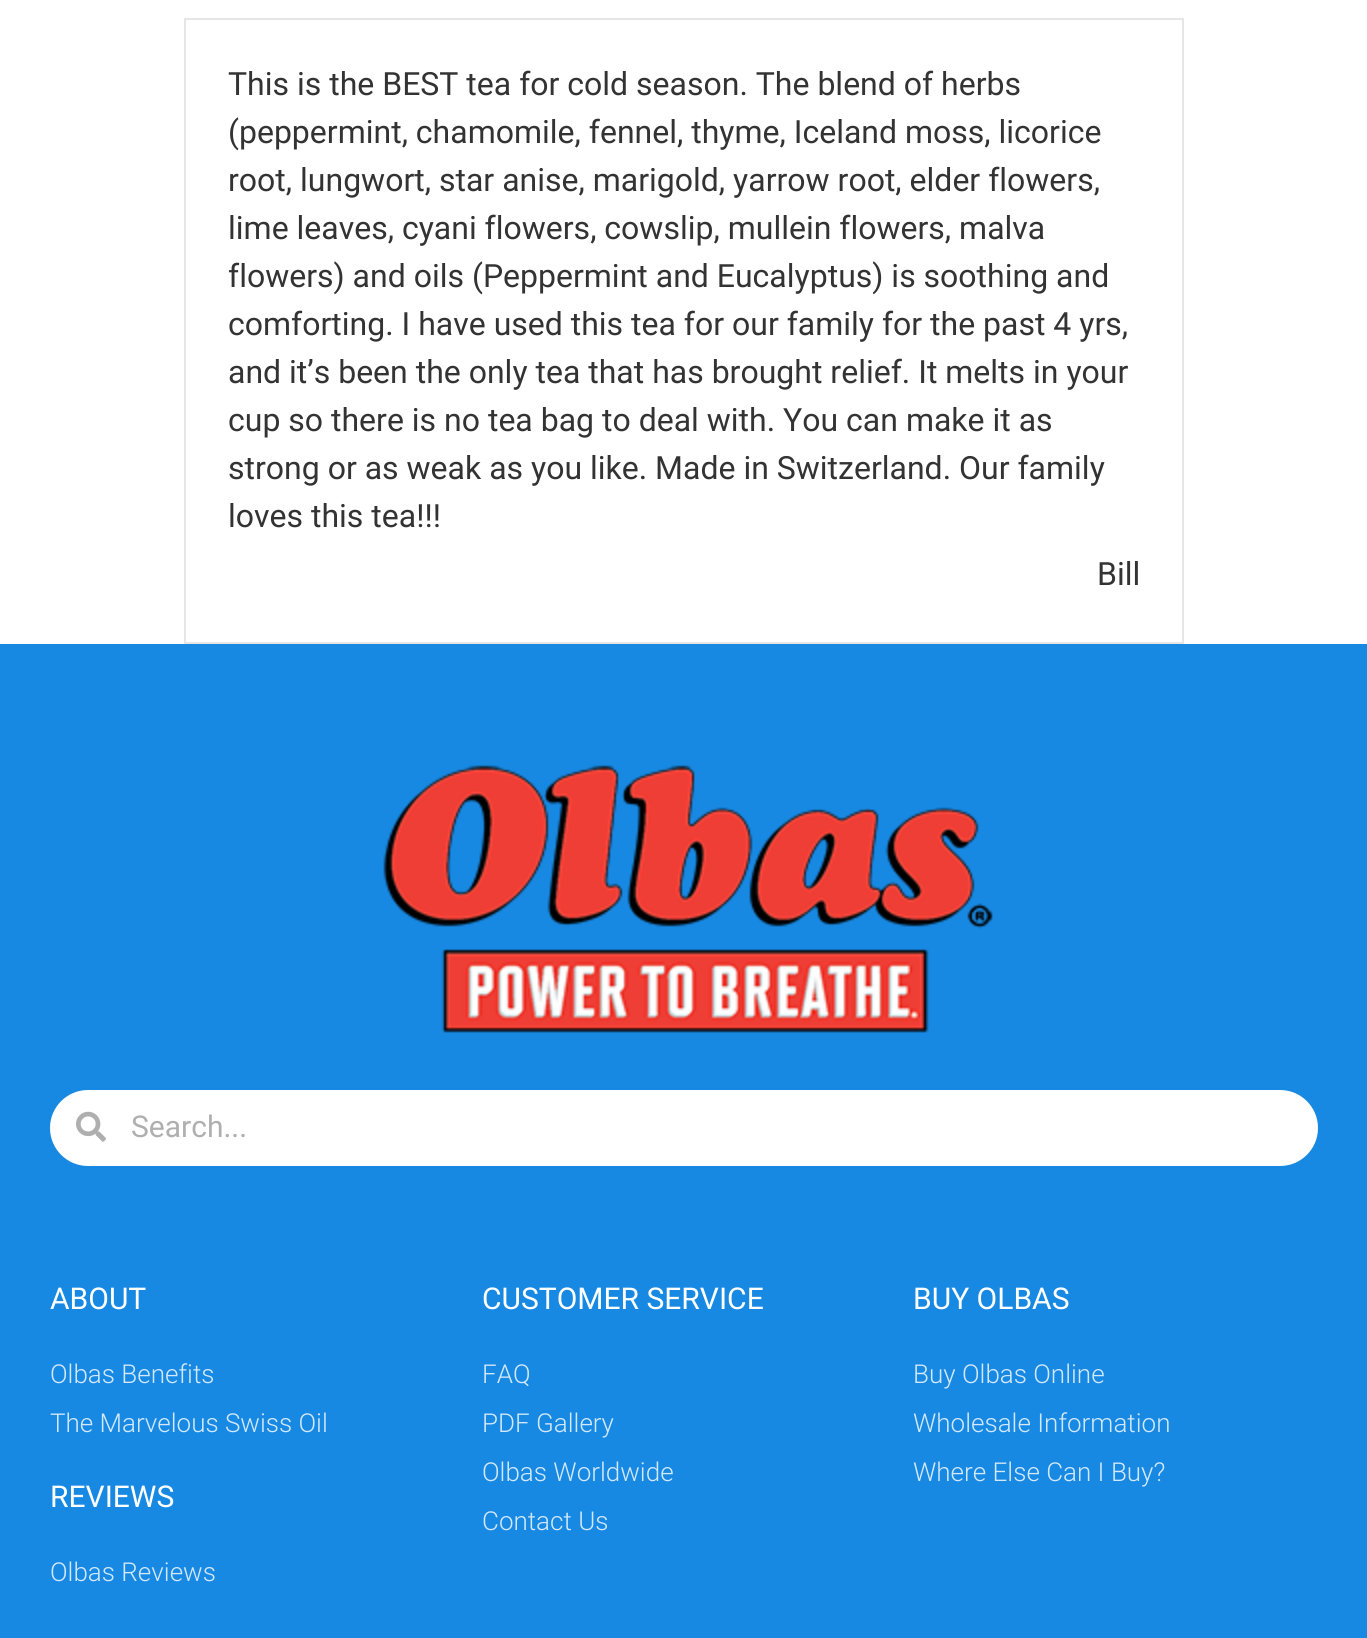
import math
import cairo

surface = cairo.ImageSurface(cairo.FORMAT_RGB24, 1367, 1638)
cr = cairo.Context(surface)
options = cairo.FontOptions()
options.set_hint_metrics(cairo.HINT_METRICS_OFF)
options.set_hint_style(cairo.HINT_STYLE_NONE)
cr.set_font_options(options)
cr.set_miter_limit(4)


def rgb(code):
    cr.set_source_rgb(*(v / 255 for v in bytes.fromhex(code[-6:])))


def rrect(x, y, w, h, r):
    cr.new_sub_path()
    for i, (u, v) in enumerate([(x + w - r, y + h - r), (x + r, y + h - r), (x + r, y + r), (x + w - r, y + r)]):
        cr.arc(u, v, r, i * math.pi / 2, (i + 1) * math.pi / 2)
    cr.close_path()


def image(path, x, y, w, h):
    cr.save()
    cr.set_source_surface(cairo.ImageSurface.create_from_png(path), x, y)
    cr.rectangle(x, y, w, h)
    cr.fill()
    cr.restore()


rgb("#ffffff")
cr.paint()
cr.rectangle(185, 19, 998, 624)
rgb("#e6e6e6")
cr.stroke()
rgb("#1889e3")
cr.rectangle(0, 644, 1367, 994)
cr.fill()
image("img/1.png", 383, 765, 610, 268)
rgb("#ffffff")
rrect(50, 1090, 1268, 76, 38)
cr.fill()
image("img/2.png", 76, 1111, 30, 31)
cr.select_font_face("Roboto")
cr.set_font_size(32)
rgb("#333333")
for x, y, s in [
    (228, 95, "This is the BEST tea for cold season. The blend of herbs"),
    (228, 143, "(peppermint, chamomile, fennel, thyme, Iceland moss, licorice"),
    (228, 191, "root, lungwort, star anise, marigold, yarrow root, elder flowers,"),
    (228, 239, "lime leaves, cyani flowers, cowslip, mullein flowers, malva"),
    (228, 287, "flowers) and oils (Peppermint and Eucalyptus) is soothing and"),
    (228, 335, "comforting. I have used this tea for our family for the past 4 yrs,"),
    (228, 383, "and it’s been the only tea that has brought relief. It melts in your"),
    (228, 431, "cup so there is no tea bag to deal with. You can make it as"),
    (228, 479, "strong or as weak as you like. Made in Switzerland. Our family"),
    (228, 527, "loves this tea!!!"),
    (1097, 585, "Bill"),
]:
    cr.move_to(x, y)
    cr.show_text(s)
cr.set_font_size(30)
rgb("#afafaf")
cr.move_to(131, 1137)
cr.show_text("Search...")
rgb("#ffffff")
cr.move_to(50, 1309)
cr.show_text("ABOUT")
cr.select_font_face("Roboto Light")
cr.set_font_size(26)
rgb("#d3e9fa")
cr.move_to(50, 1383)
cr.show_text("Olbas Benefits")
cr.move_to(50, 1432)
cr.show_text("The Marvelous Swiss Oil")
cr.select_font_face("Roboto")
cr.set_font_size(30)
rgb("#ffffff")
cr.move_to(50, 1507)
cr.show_text("REVIEWS")
cr.select_font_face("Roboto Light")
cr.set_font_size(26)
rgb("#d3e9fa")
cr.move_to(50, 1581)
cr.show_text("Olbas Reviews")
cr.select_font_face("Roboto")
cr.set_font_size(30)
rgb("#ffffff")
cr.move_to(482, 1309)
cr.show_text("CUSTOMER SERVICE")
cr.select_font_face("Roboto Light")
cr.set_font_size(26)
rgb("#d3e9fa")
for x, y, s in [
    (482, 1383, "FAQ"),
    (482, 1432, "PDF Gallery"),
    (482, 1481, "Olbas Worldwide"),
    (482, 1530, "Contact Us"),
]:
    cr.move_to(x, y)
    cr.show_text(s)
cr.select_font_face("Roboto")
cr.set_font_size(30)
rgb("#ffffff")
cr.move_to(913, 1309)
cr.show_text("BUY OLBAS")
cr.select_font_face("Roboto Light")
cr.set_font_size(26)
rgb("#d3e9fa")
for x, y, s in [
    (913, 1383, "Buy Olbas Online"),
    (913, 1432, "Wholesale Information"),
    (913, 1481, "Where Else Can I Buy?"),
]:
    cr.move_to(x, y)
    cr.show_text(s)
surface.write_to_png("page.png")
